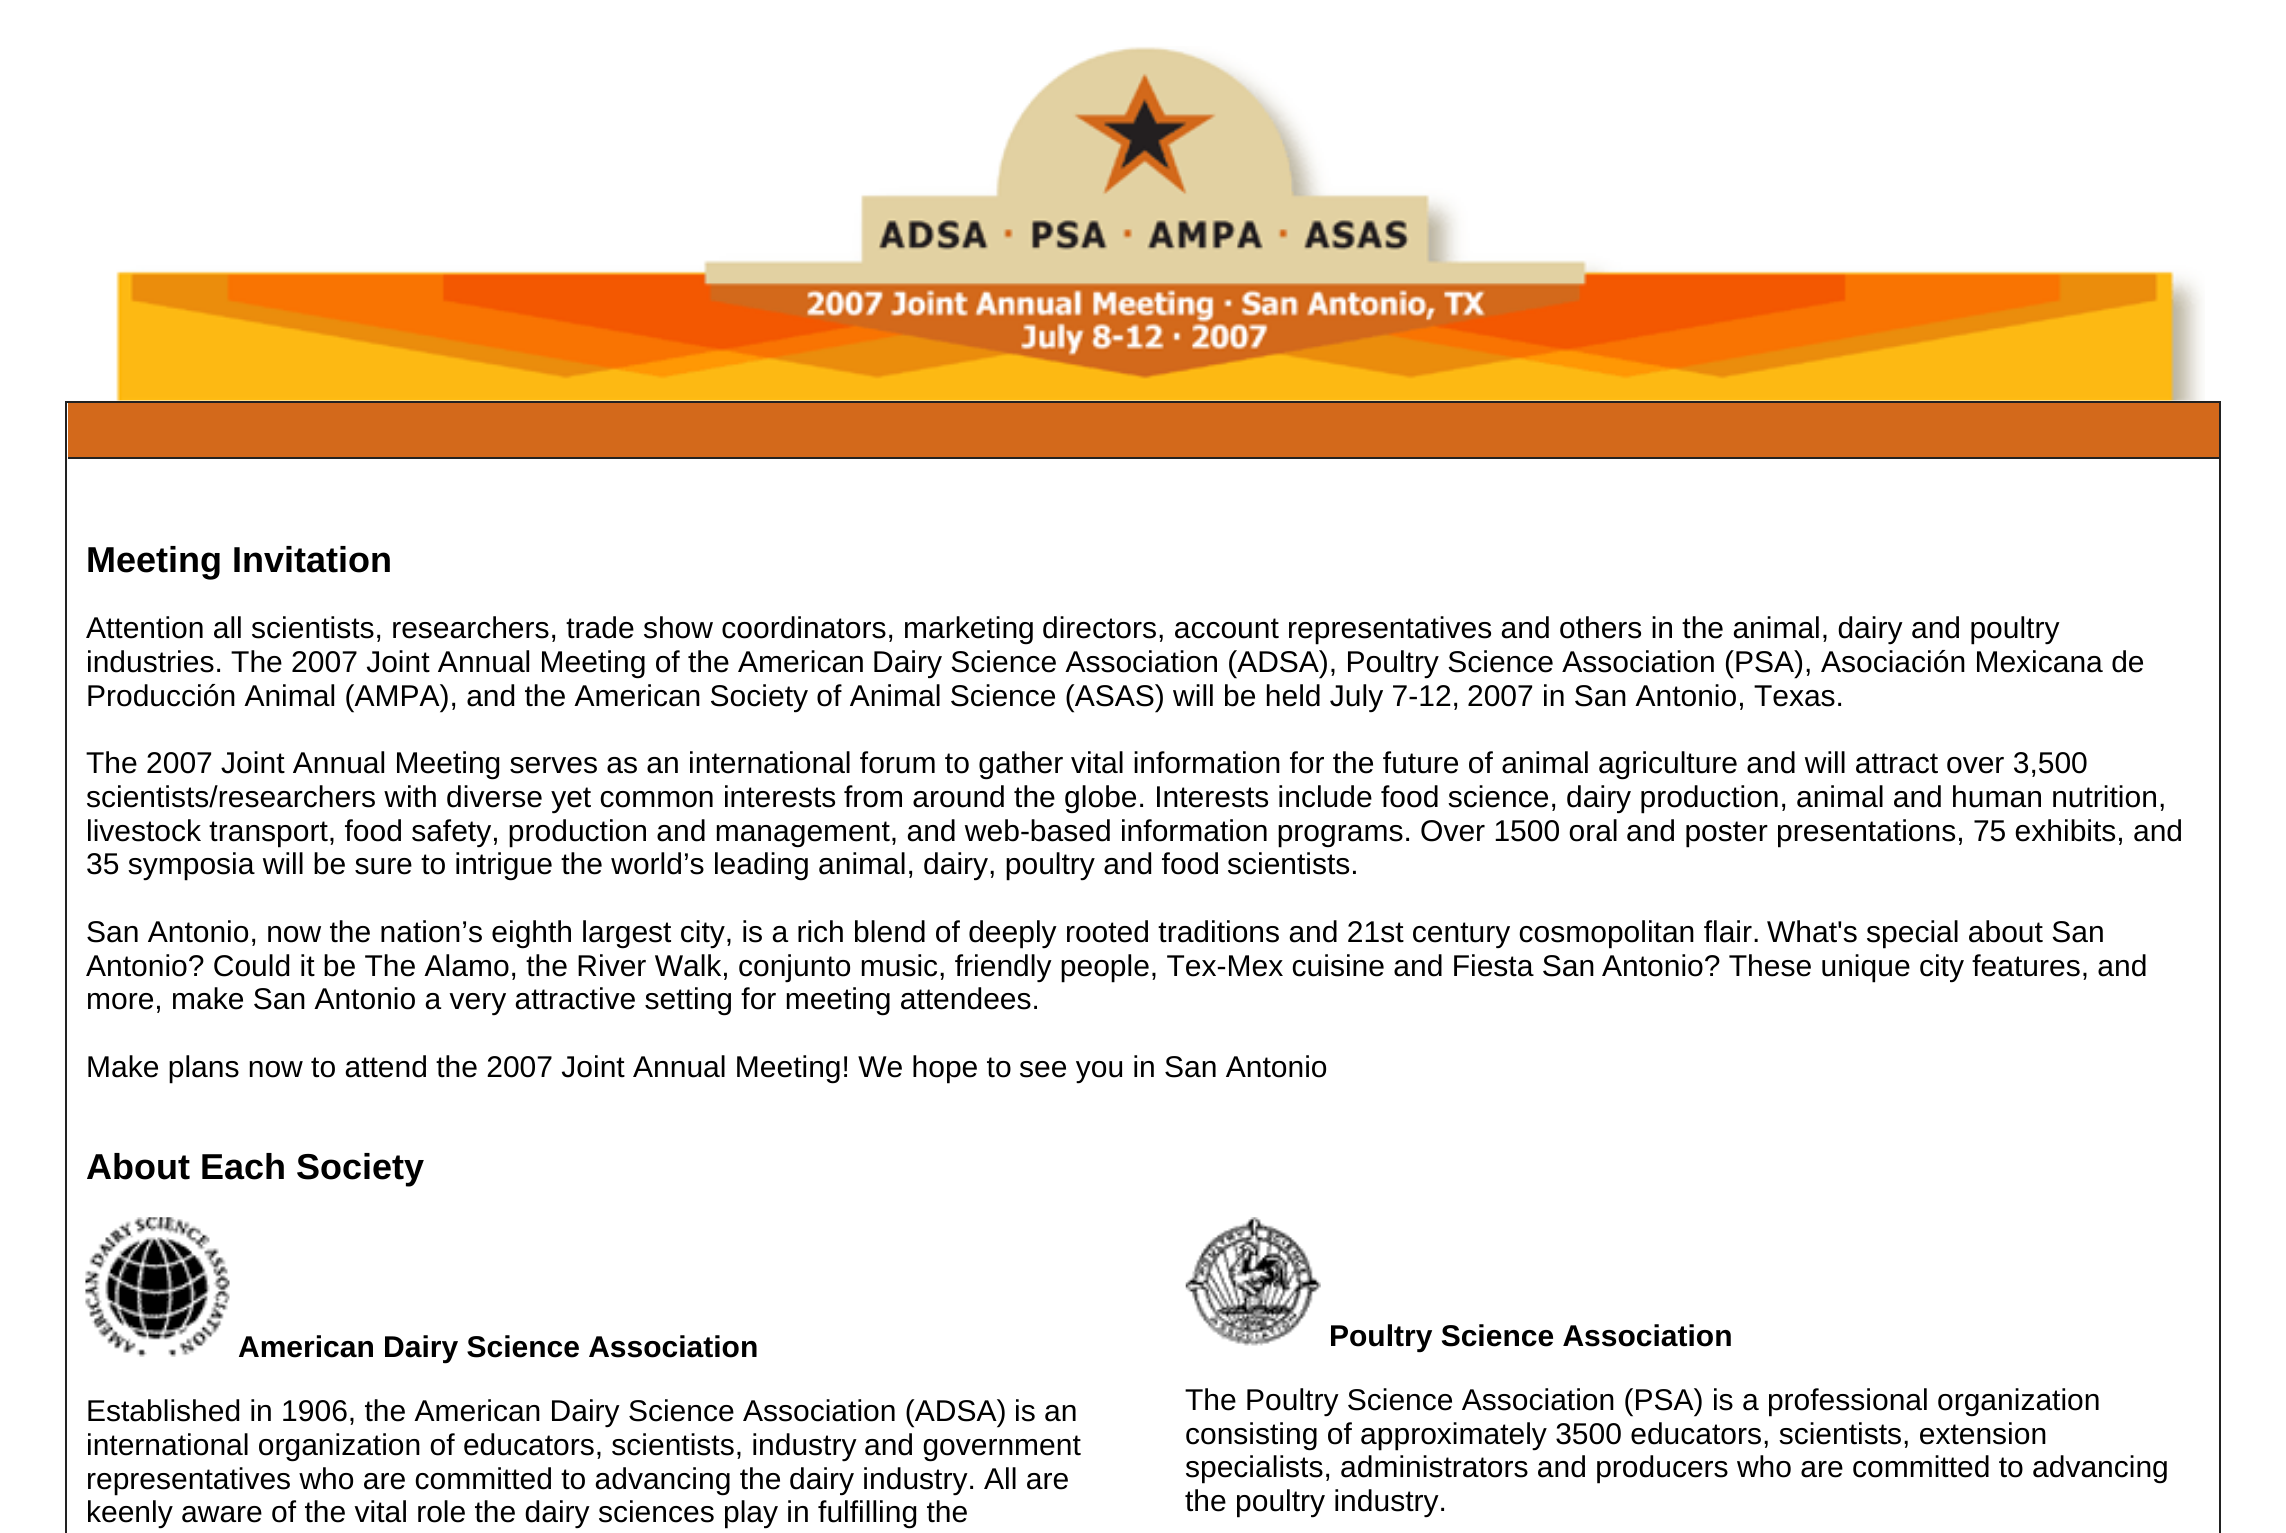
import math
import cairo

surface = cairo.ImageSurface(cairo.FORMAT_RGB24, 2286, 1533)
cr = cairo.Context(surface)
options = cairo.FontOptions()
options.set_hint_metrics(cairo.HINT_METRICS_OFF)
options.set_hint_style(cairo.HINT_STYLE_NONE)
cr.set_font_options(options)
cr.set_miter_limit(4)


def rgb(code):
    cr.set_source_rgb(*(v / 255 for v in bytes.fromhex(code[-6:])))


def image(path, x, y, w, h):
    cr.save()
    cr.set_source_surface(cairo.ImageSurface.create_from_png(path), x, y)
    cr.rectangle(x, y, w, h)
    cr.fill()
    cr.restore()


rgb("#ffffff")
cr.paint()
image("img/1.png", 116, 46, 2089, 355)
cr.rectangle(66, 402, 2154, 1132)
rgb("#222222")
cr.stroke()
rgb("#d3691b")
cr.rectangle(68, 403, 2151, 54)
cr.fill()
rgb("#222222")
cr.rectangle(68, 457, 2151, 2)
cr.fill()
image("img/2.png", 85, 1217, 145, 140)
image("img/3.png", 1185, 1217, 136, 129)
cr.select_font_face("Liberation Sans", cairo.FONT_SLANT_NORMAL, cairo.FONT_WEIGHT_BOLD)
cr.set_font_size(36)
rgb("#000000")
cr.move_to(86, 572)
cr.show_text("Meeting Invitation")
cr.select_font_face("Liberation Sans")
cr.set_font_size(30)
for x, y, s in [
    (86, 638, "Attention all scientists, researchers, trade show coordinators, marketing"),
    (1042, 638, "directors, account representatives and others in the animal, dairy"),
    (1911, 638, "and poultry"),
    (86, 672, "industries. The 2007 Joint Annual Meeting of the American"),
    (872, 672, "Dairy Science Association (ADSA), Poultry Science Association (PSA),"),
    (1821, 672, "Asociación Mexicana de"),
    (86, 706, "Producción Animal (AMPA), and the American Society of Animal Science (ASAS) will be held July 7-12,"),
    (1467, 706, "2007 in San Antonio, Texas."),
    (86, 773, "The 2007 Joint Annual Meeting serves as an international forum to gather"),
    (1071, 773, "vital information for the future of animal agriculture and will attract"),
    (1946, 773, "over 3,500"),
    (86, 807, "scientists/researchers with diverse yet common interests"),
    (844, 807, "from around the globe. Interests include food science, dairy production,"),
    (1796, 807, "animal and human nutrition,"),
    (86, 841, "livestock transport, food safety, production and management, and web-based information programs. Over 1500 oral"),
    (1626, 841, "and poster presentations, 75 exhibits, and"),
    (86, 874, "35 symposia will be sure to intrigue the world’s leading animal, dairy, poultry and food"),
    (1227, 874, "scientists."),
    (86, 942, "San Antonio, now the nation’s eighth largest city, is a rich blend of deeply rooted traditions and 21st century cosmopolitan flair."),
    (1767, 942, "What's special about San"),
    (86, 976, "Antonio? Could it be The Alamo, the River Walk, conjunto music, friendly people, Tex-Mex cuisine and Fiesta San"),
    (1602, 976, "Antonio? These unique city features, and"),
    (86, 1009, "more, make San Antonio a very attractive setting for meeting attendees."),
    (86, 1077, "Make plans now to attend the 2007 Joint Annual Meeting! We hope to"),
    (1019, 1077, "see you in San Antonio"),
]:
    cr.move_to(x, y)
    cr.show_text(s)
cr.select_font_face("Liberation Sans", cairo.FONT_SLANT_NORMAL, cairo.FONT_WEIGHT_BOLD)
cr.set_font_size(36)
cr.move_to(86, 1179)
cr.show_text("About Each Society")
cr.set_font_size(30)
cr.move_to(238, 1357)
cr.show_text("American Dairy Science Association")
cr.select_font_face("Liberation Sans")
for x, y, s in [
    (86, 1421, "Established in 1906, the American Dairy Science Association (ADSA)"),
    (1014, 1421, "is an"),
    (86, 1455, "international organization of educators, scientists, industry"),
    (864, 1455, "and government"),
    (86, 1489, "representatives who are committed to advancing the"),
    (789, 1489, "dairy industry. All are"),
    (86, 1522, "keenly aware of the vital role the dairy sciences play in fulfilling the"),
]:
    cr.move_to(x, y)
    cr.show_text(s)
cr.select_font_face("Liberation Sans", cairo.FONT_SLANT_NORMAL, cairo.FONT_WEIGHT_BOLD)
cr.move_to(1329, 1346)
cr.show_text("Poultry Science Association")
cr.select_font_face("Liberation Sans")
for x, y, s in [
    (1185, 1410, "The Poultry Science Association (PSA) is a professional organization"),
    (1185, 1444, "consisting of approximately 3500 educators, scientists, extension"),
    (1185, 1477, "specialists, administrators and producers who are committed to advancing"),
    (1185, 1511, "the poultry industry."),
]:
    cr.move_to(x, y)
    cr.show_text(s)
surface.write_to_png("page.png")
